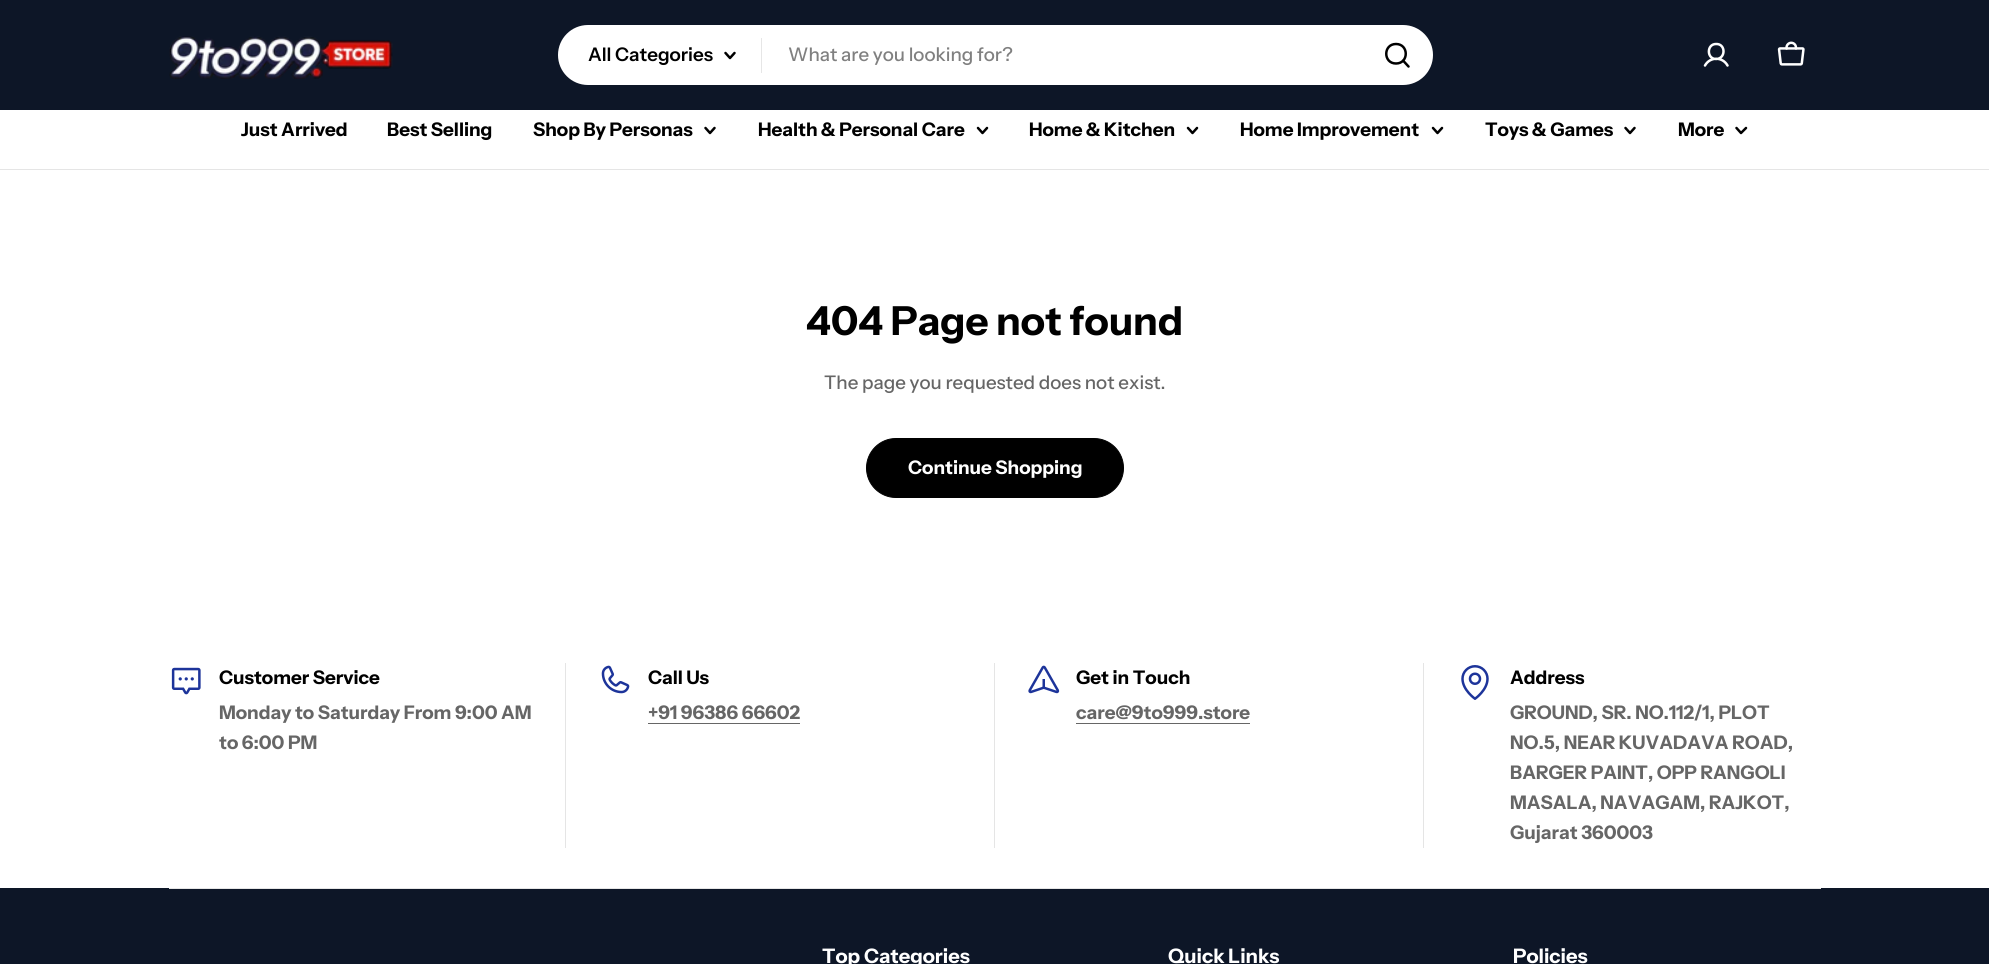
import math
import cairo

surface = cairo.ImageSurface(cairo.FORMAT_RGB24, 1989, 964)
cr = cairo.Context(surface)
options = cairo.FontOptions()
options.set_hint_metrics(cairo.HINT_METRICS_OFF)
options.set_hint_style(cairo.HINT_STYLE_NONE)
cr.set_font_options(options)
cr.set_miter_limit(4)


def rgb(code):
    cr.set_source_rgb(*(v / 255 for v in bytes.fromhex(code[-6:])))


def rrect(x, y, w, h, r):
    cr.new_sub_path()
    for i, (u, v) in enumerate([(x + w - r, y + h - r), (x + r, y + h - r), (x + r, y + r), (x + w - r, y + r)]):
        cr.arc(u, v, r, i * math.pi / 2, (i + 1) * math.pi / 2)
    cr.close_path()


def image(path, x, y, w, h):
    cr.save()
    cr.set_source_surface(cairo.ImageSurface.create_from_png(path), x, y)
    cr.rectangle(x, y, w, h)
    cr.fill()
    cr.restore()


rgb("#ffffff")
cr.paint()
rgb("#0d1627")
cr.rectangle(0, 0, 1989, 110)
cr.fill()
image("img/1.png", 169, 36, 224, 43)
rgb("#ffffff")
rrect(558, 25, 875, 60, 30)
cr.fill()
cr.new_path()
cr.move_to(734.5, 53)
cr.line_to(730, 58)
cr.line_to(725.5, 53)
rgb("#000000")
cr.set_line_width(2.5)
cr.set_line_cap(cairo.LINE_CAP_ROUND)
cr.set_line_join(cairo.LINE_JOIN_ROUND)
cr.stroke()
rgb("#e6e6e6")
cr.rectangle(761, 38, 1, 35)
cr.fill()
cr.new_path()
cr.move_to(1396, 63.5)
cr.curve_to(1409, 63.5, 1409, 44, 1396, 44)
cr.curve_to(1383, 44, 1383, 63.5, 1396, 63.5)
cr.close_path()
cr.move_to(1403, 60.5)
cr.line_to(1408.5, 66.5)
rgb("#000000")
cr.stroke()
cr.new_path()
cr.move_to(1716, 59)
cr.curve_to(1726, 59, 1726, 43.5, 1716, 44)
cr.curve_to(1706.5, 44, 1706.5, 59, 1716, 59)
cr.close_path()
cr.move_to(1705, 65.5)
cr.curve_to(1710, 56.5, 1722.5, 56.5, 1727.5, 65.5)
rgb("#ffffff")
cr.stroke()
image("img/2.png", 1777, 41, 28, 25)
rgb("#e5e5e5")
cr.rectangle(0, 169, 1989, 1)
cr.fill()
cr.new_path()
cr.move_to(714.5, 128)
cr.line_to(710, 133)
cr.line_to(705.5, 128)
rgb("#000000")
cr.stroke()
cr.new_path()
cr.move_to(987, 128)
cr.line_to(982.5, 133)
cr.line_to(978, 128)
cr.stroke()
cr.new_path()
cr.move_to(1197, 128)
cr.line_to(1192.5, 133)
cr.line_to(1188, 128)
cr.stroke()
cr.new_path()
cr.move_to(1442, 128)
cr.line_to(1437.5, 133)
cr.line_to(1433, 128)
cr.stroke()
cr.new_path()
cr.move_to(1634.5, 128)
cr.line_to(1630, 133)
cr.line_to(1625.5, 128)
cr.stroke()
cr.new_path()
cr.move_to(1746, 128)
cr.line_to(1741, 133)
cr.line_to(1736.5, 128)
cr.stroke()
rrect(866.5, 438.5, 257, 59, 29.5)
cr.fill_preserve()
cr.set_line_width(1)
cr.set_line_cap(cairo.LINE_CAP_BUTT)
cr.set_line_join(cairo.LINE_JOIN_MITER)
cr.stroke()
image("img/3.png", 171, 667, 30, 28)
rgb("#e5e5e5")
cr.rectangle(565, 663, 1, 185)
cr.fill()
image("img/4.png", 601, 665, 29, 29)
rgb("#666666")
cr.rectangle(648, 723, 152, 1)
cr.fill()
rgb("#e5e5e5")
cr.rectangle(994, 663, 1, 185)
cr.fill()
image("img/5.png", 1028, 665, 32, 29)
rgb("#666666")
cr.rectangle(1076, 723, 174, 1)
cr.fill()
rgb("#e5e5e5")
cr.rectangle(1423, 663, 1, 185)
cr.fill()
image("img/6.png", 1461, 665, 28, 35)
rgb("#0d1627")
cr.rectangle(0, 888, 1989, 76)
cr.fill()
rgb("#e5e5e5")
cr.rectangle(169, 888, 1652, 1)
cr.fill()
cr.select_font_face("Instrument Sans SemiBold")
cr.set_font_size(18.75)
rgb("#000000")
cr.move_to(588, 61)
cr.show_text("All Categories")
cr.select_font_face("Instrument Sans Medium")
rgb("#808080")
cr.move_to(788, 61)
cr.show_text("What are you looking for?")
cr.select_font_face("Instrument Sans", cairo.FONT_SLANT_NORMAL, cairo.FONT_WEIGHT_BOLD)
rgb("#000000")
for x, y, s in [
    (241, 136, "Just Arrived"),
    (387, 136, "Best Selling"),
    (533, 136, "Shop By Personas"),
    (758, 136, "Health & Personal Care"),
    (1029, 136, "Home & Kitchen"),
    (1240, 136, "Home Improvement"),
    (1485, 136, "Toys & Games"),
    (1678, 136, "More"),
]:
    cr.move_to(x, y)
    cr.show_text(s)
cr.set_font_size(40)
cr.move_to(806, 335)
cr.show_text("404 Page not found")
cr.select_font_face("Instrument Sans Medium")
cr.set_font_size(18.75)
rgb("#666666")
cr.move_to(824, 389)
cr.show_text("The page you requested does not exist.")
cr.select_font_face("Instrument Sans", cairo.FONT_SLANT_NORMAL, cairo.FONT_WEIGHT_BOLD)
rgb("#ffffff")
cr.move_to(908, 474)
cr.show_text("Continue Shopping")
rgb("#000000")
cr.move_to(219, 684)
cr.show_text("Customer Service")
rgb("#666666")
cr.move_to(219, 719)
cr.show_text("Monday to Saturday From 9:00 AM")
cr.move_to(219, 749)
cr.show_text("to 6:00 PM")
rgb("#000000")
cr.move_to(648, 684)
cr.show_text("Call Us")
rgb("#666666")
cr.move_to(648, 719)
cr.show_text("+91 96386 66602")
rgb("#000000")
cr.move_to(1076, 684)
cr.show_text("Get in Touch")
rgb("#666666")
cr.move_to(1076, 719)
cr.show_text("care@9to999.store")
rgb("#000000")
cr.move_to(1510, 684)
cr.show_text("Address")
rgb("#666666")
for x, y, s in [
    (1510, 719, "GROUND, SR. NO.112/1, PLOT"),
    (1510, 749, "NO.5, NEAR KUVADAVA ROAD,"),
    (1510, 779, "BARGER PAINT, OPP RANGOLI"),
    (1510, 809, "MASALA, NAVAGAM, RAJKOT,"),
    (1510, 839, "Gujarat 360003"),
]:
    cr.move_to(x, y)
    cr.show_text(s)
cr.set_font_size(20)
rgb("#ffffff")
for x, y, s in [
    (822, 963, "Top Categories"),
    (1168, 963, "Quick Links"),
    (1513, 963, "Policies"),
]:
    cr.move_to(x, y)
    cr.show_text(s)
surface.write_to_png("page.png")
